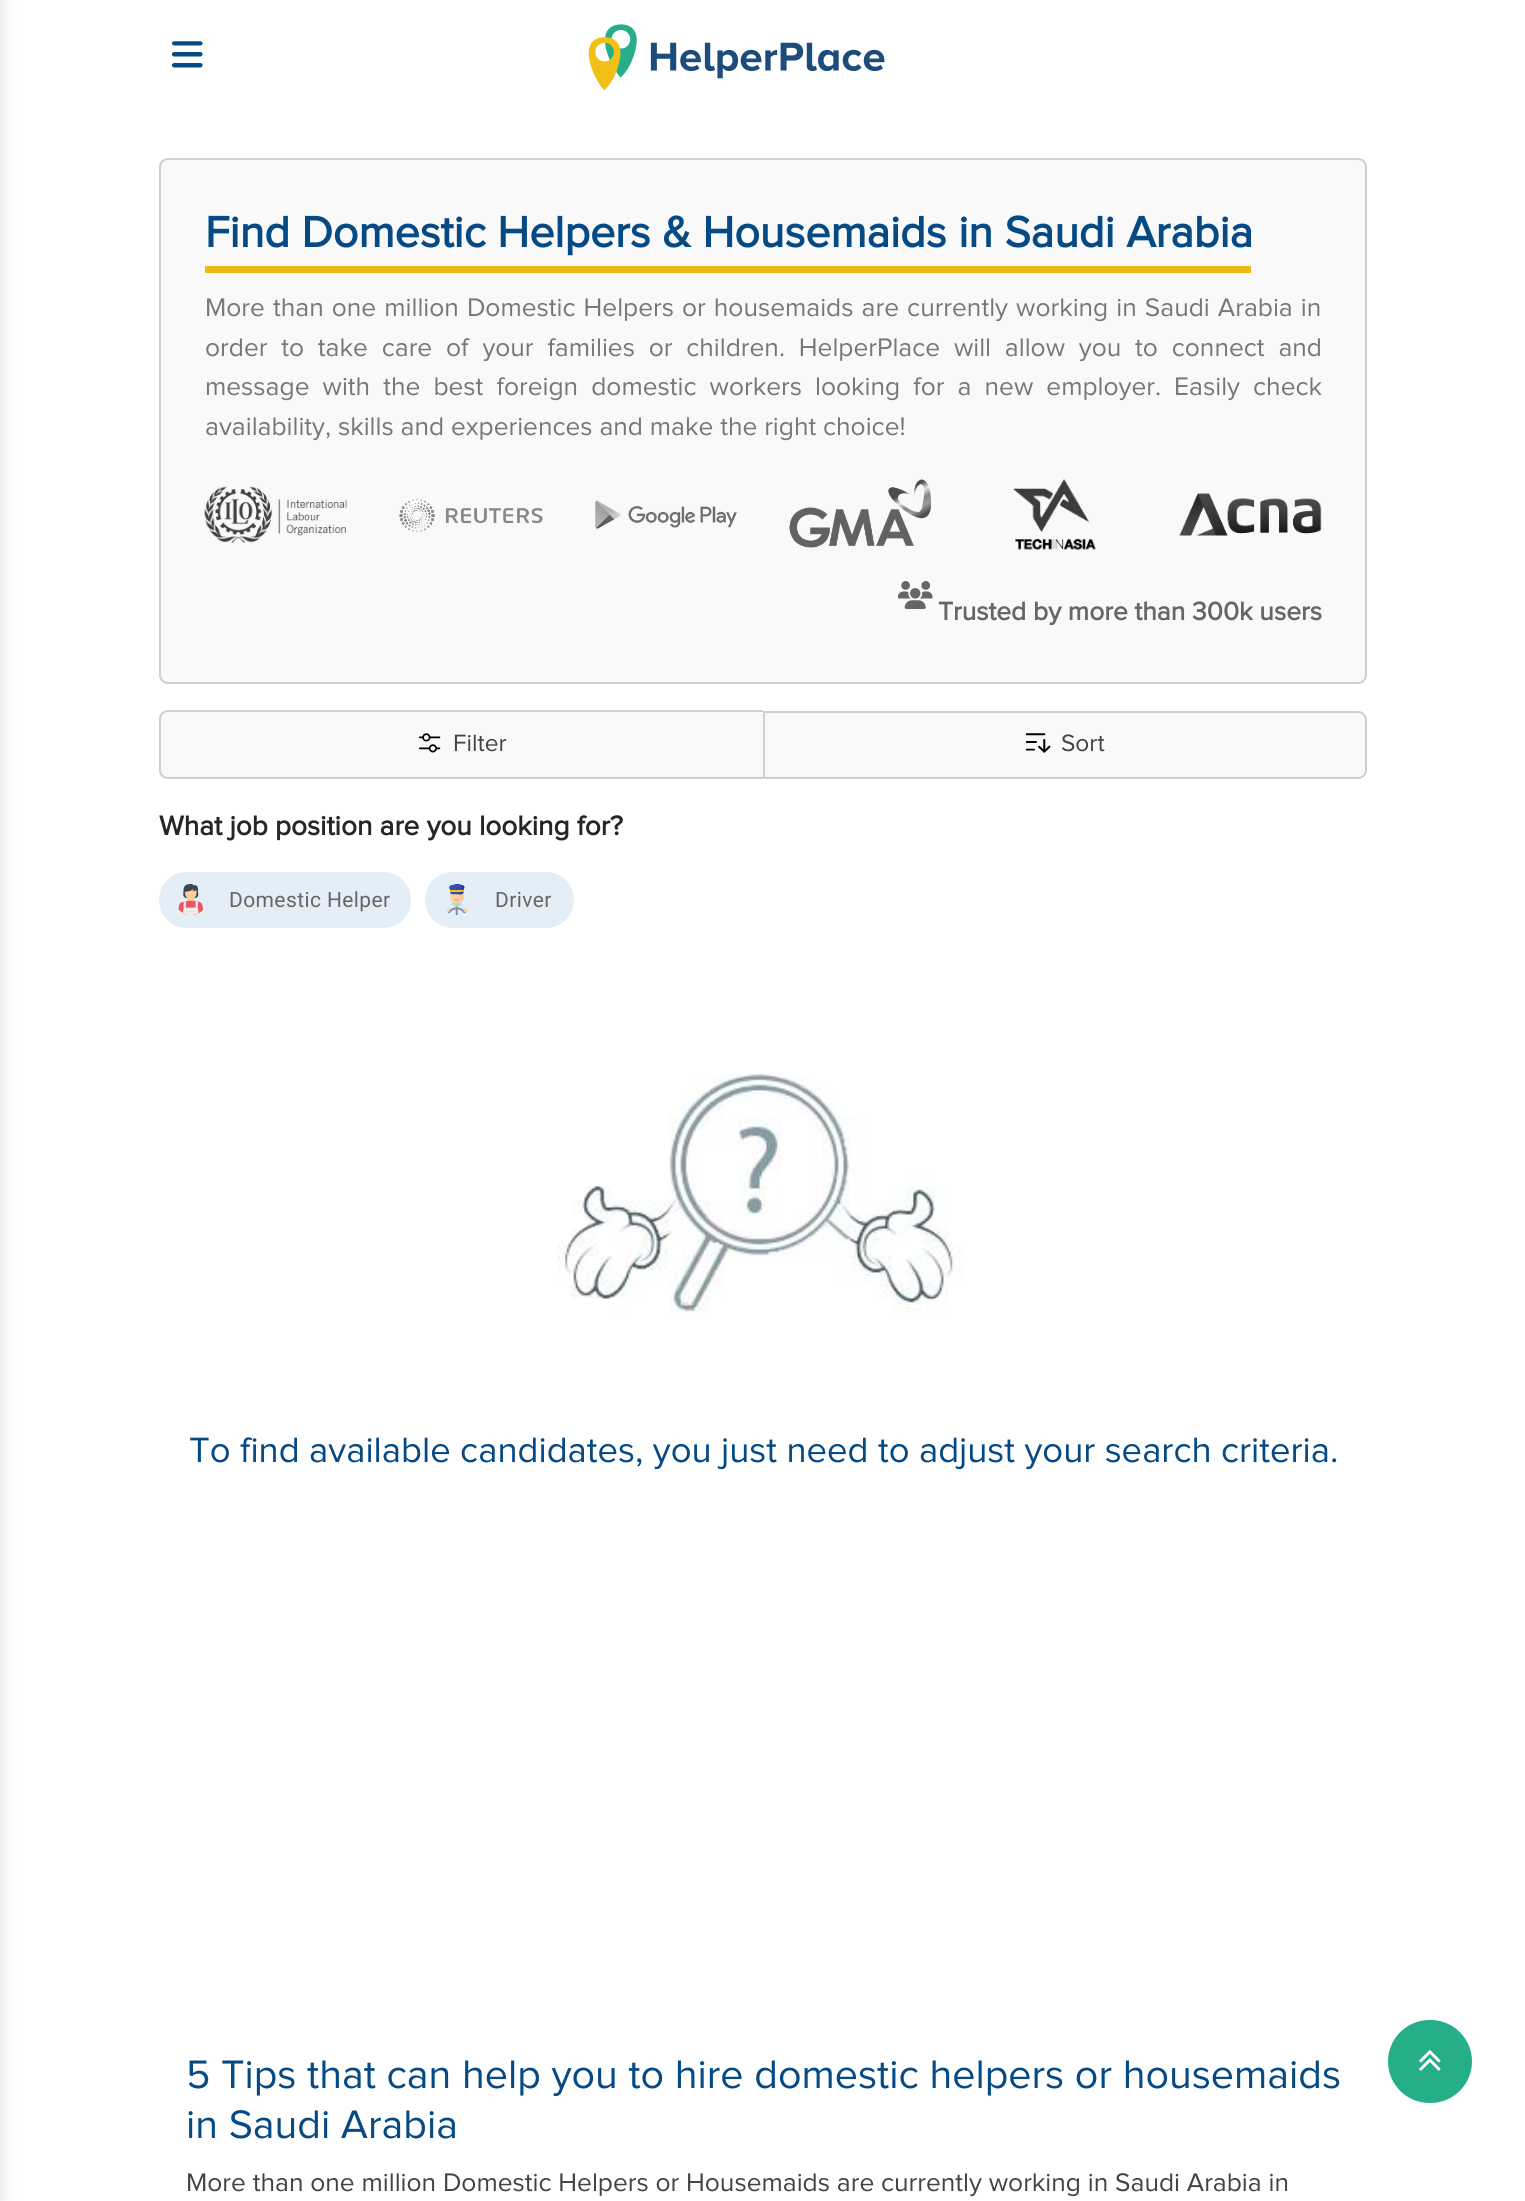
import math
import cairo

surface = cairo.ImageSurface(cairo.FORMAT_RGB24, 1525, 2201)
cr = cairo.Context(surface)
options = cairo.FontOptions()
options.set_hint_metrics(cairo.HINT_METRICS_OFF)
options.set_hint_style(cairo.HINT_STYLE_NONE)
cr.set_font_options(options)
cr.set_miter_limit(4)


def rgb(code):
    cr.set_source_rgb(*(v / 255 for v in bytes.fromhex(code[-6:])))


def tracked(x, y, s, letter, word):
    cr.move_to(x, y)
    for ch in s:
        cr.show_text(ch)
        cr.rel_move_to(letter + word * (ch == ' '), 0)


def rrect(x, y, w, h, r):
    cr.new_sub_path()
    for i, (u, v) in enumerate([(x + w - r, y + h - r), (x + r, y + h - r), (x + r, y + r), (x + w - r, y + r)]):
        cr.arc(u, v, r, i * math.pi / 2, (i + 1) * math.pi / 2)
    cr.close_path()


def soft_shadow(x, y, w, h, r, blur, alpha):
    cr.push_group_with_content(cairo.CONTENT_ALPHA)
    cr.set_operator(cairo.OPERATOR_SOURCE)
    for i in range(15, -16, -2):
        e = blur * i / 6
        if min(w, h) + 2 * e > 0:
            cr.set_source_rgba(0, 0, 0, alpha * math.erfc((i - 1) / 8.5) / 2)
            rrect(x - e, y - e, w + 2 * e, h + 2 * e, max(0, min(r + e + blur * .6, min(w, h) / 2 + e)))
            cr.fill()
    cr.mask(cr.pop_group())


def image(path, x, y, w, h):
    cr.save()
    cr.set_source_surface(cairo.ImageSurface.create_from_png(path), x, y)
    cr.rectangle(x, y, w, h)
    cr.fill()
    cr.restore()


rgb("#ffffff")
cr.paint()
rgb("#000000")
soft_shadow(-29, 0, 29, 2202, 0, 9.5, 0.13)
image("img/1.png", 172, 41, 31, 27)
image("img/2.png", 588, 24, 297, 67)
rgb("#f9f9f9")
rrect(160, 159, 1206, 524, 8)
cr.fill_preserve()
rgb("#cfcfcf")
cr.stroke()
rgb("#ebba16")
cr.rectangle(205, 266, 1046, 7)
cr.fill()
image("img/3.png", 204, 486, 143, 57)
image("img/4.png", 399, 499, 144, 33)
image("img/5.png", 595, 500, 142, 29)
image("img/6.png", 789, 479, 142, 69)
image("img/7.png", 1013, 479, 83, 71)
image("img/8.png", 1179, 493, 143, 43)
image("img/9.png", 898, 581, 35, 28)
rgb("#f9f9f9")
cr.new_path()
cr.move_to(168, 711)
cr.line_to(763, 711)
cr.line_to(763, 779)
cr.line_to(168, 779)
cr.curve_to(163, 779, 159, 775, 159, 770)
cr.line_to(159, 720)
cr.curve_to(159, 715, 163, 711, 168, 711)
cr.close_path()
cr.fill()
rgb("#cfcfcf")
cr.set_fill_rule(cairo.FILL_RULE_EVEN_ODD)
cr.new_path()
cr.move_to(168, 710)
cr.line_to(763, 710)
cr.line_to(763, 779)
cr.line_to(168, 779)
cr.curve_to(163, 779, 159, 775, 159, 770)
cr.line_to(159, 719)
cr.curve_to(159, 714, 163, 710, 168, 710)
cr.close_path()
cr.move_to(168, 712)
cr.line_to(763, 712)
cr.line_to(763, 777)
cr.line_to(168, 777)
cr.curve_to(164, 777, 161, 774, 161, 770)
cr.line_to(161, 719)
cr.curve_to(161, 715, 164, 712, 168, 712)
cr.close_path()
cr.fill()
image("img/10.png", 419, 733, 22, 20)
rgb("#f9f9f9")
cr.new_path()
cr.move_to(764, 712)
cr.line_to(1358, 712)
cr.curve_to(1362.5, 712, 1366, 715.5, 1366, 720)
cr.line_to(1366, 770)
cr.curve_to(1366, 774.5, 1362.5, 778, 1358, 778)
cr.line_to(764, 778)
cr.close_path()
cr.fill_preserve()
rgb("#cfcfcf")
cr.stroke()
image("img/11.png", 1025, 733, 26, 20)
rgb("#e4eef7")
rrect(159, 872, 252, 56, 28)
cr.fill()
image("img/12.png", 178, 884, 25, 31)
rrect(425, 872, 149, 56, 28)
cr.fill()
image("img/13.png", 445, 884, 24, 31)
image("img/14.png", 557, 1074, 405, 239)
rgb("#25ae88")
rrect(1387, 2019, 86, 85, 42.5)
cr.fill_preserve()
rgb("#ffffff")
cr.stroke()
image("img/15.png", 1419, 2050, 22, 21)
cr.select_font_face("Proxima Nova", cairo.FONT_SLANT_NORMAL, cairo.FONT_WEIGHT_BOLD)
cr.set_font_size(44.7)
rgb("#054a84")
cr.move_to(205, 247)
cr.show_text("Find Domestic Helpers & Housemaids in Saudi Arabia")
cr.select_font_face("Proxima Nova")
cr.set_font_size(26.35)
rgb("#777777")
tracked(205, 316, "More than one million Domestic Helpers or housemaids are currently working in Saudi Arabia in", 0, 1.25)
tracked(205, 356, "order to take care of your families or children. HelperPlace will allow you to connect and", 0, 7)
tracked(205, 395, "message with the best foreign domestic workers looking for a new employer. Easily check", 0, 6.25)
cr.move_to(205, 435)
cr.show_text("availability, skills and experiences and make the right choice!")
cr.select_font_face("Proxima Nova", cairo.FONT_SLANT_NORMAL, cairo.FONT_WEIGHT_BOLD)
rgb("#666666")
cr.move_to(938, 620)
cr.show_text("Trusted by more than 300k users")
cr.select_font_face("Proxima Nova")
cr.set_font_size(24.5)
rgb("#434345")
cr.move_to(453, 751)
cr.show_text("Filter")
cr.move_to(1061, 751)
cr.show_text("Sort")
cr.select_font_face("Proxima Nova", cairo.FONT_SLANT_NORMAL, cairo.FONT_WEIGHT_BOLD)
cr.set_font_size(28)
rgb("#262626")
cr.move_to(159, 835)
cr.show_text("What job position are you looking for?")
cr.select_font_face("Roboto")
cr.set_font_size(21)
rgb("#666666")
tracked(229, 907, "Domestic Helper", 0.4, 0)
tracked(495, 907, "Driver", 0.4, 0)
cr.select_font_face("Proxima Nova")
cr.set_font_size(36.45)
rgb("#054a84")
cr.move_to(189, 1462)
cr.show_text("To find available candidates, you just need to adjust your search criteria.")
cr.set_font_size(41.2)
cr.move_to(186, 2088)
cr.show_text("5 Tips that can help you to hire domestic helpers or housemaids")
cr.move_to(186, 2138)
cr.show_text("in Saudi Arabia")
cr.set_font_size(26.35)
rgb("#434345")
cr.move_to(186, 2191)
cr.show_text("More than one million Domestic Helpers or Housemaids are currently working in Saudi Arabia in")
surface.write_to_png("page.png")
